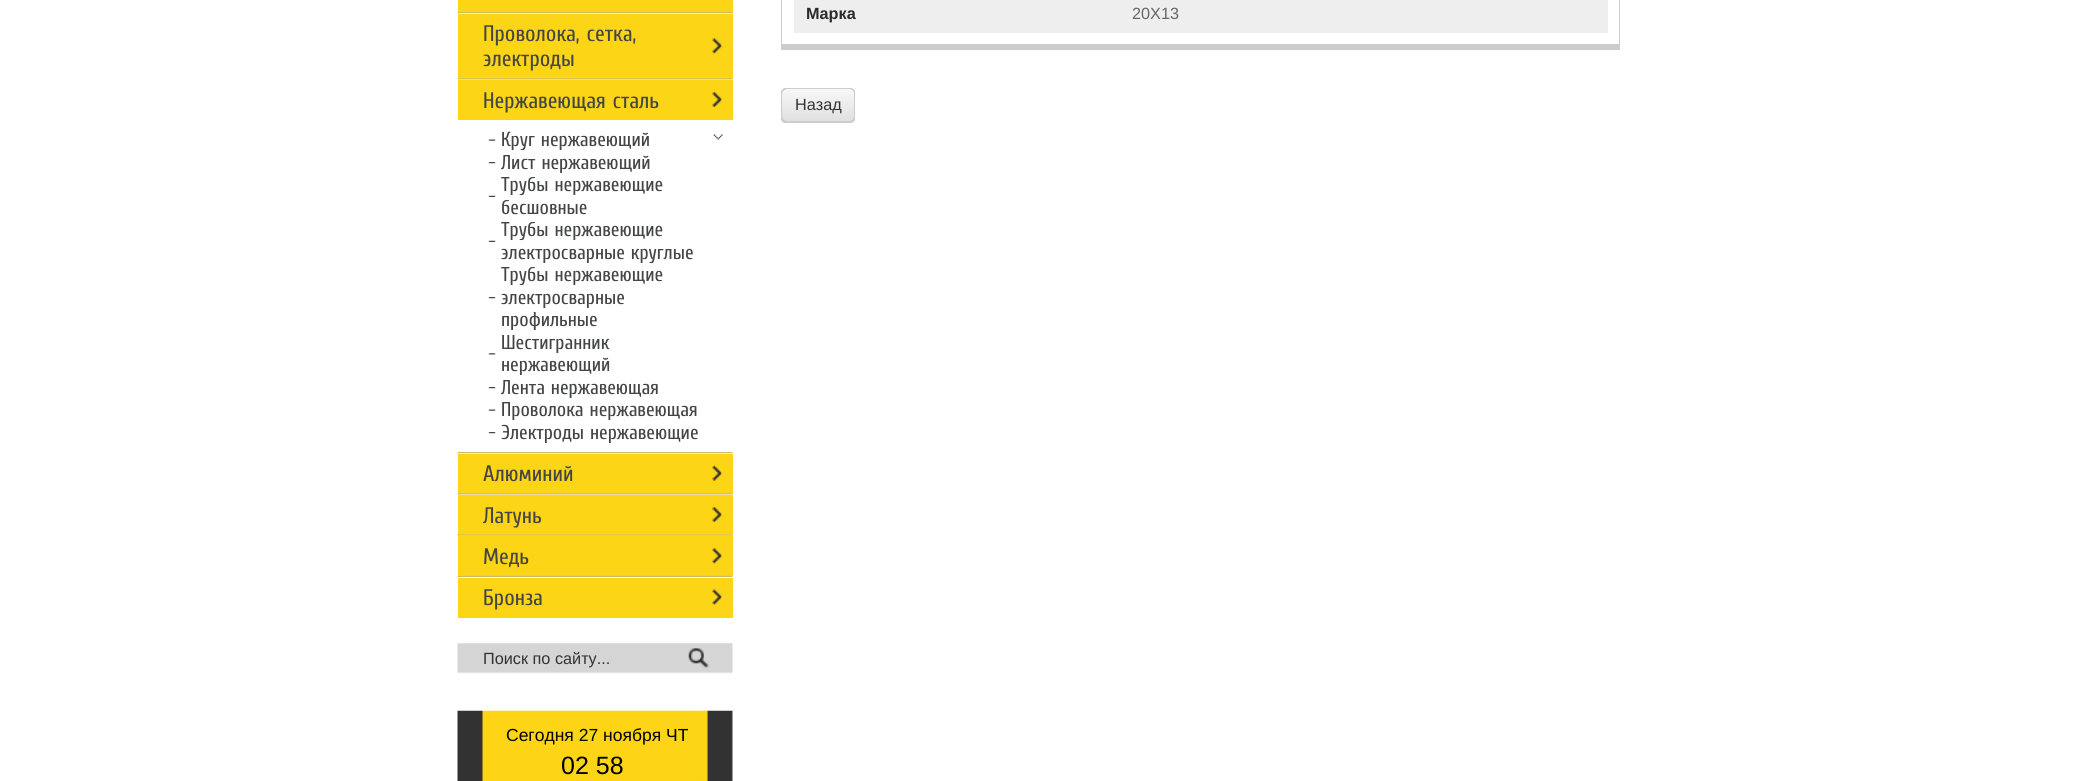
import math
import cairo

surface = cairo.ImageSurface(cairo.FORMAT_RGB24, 2090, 781)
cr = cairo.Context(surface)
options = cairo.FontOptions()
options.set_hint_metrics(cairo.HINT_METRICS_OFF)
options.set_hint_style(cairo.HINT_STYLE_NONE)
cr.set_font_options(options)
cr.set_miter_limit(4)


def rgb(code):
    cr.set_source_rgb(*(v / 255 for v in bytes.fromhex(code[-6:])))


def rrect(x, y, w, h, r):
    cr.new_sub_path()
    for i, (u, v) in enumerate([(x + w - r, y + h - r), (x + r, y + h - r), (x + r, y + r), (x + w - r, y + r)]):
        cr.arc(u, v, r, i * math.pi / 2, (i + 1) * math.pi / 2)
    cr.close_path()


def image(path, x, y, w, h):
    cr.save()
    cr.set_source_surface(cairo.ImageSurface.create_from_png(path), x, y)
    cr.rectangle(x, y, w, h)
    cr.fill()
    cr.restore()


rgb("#ffffff")
cr.paint()
rgb("#fdd517")
cr.rectangle(458, 0, 275, 13)
cr.fill()
image("img/1.png", 457, 12, 276, 2)
cr.rectangle(458, 14, 275, 65)
cr.fill()
image("img/2.png", 712, 38, 10, 16)
image("img/3.png", 457, 78, 276, 2)
cr.rectangle(458, 80, 275, 40)
cr.fill()
image("img/4.png", 712, 92, 10, 15)
image("img/5.png", 713, 134, 10, 6)
image("img/6.png", 488, 139, 8, 2)
image("img/7.png", 488, 162, 8, 2)
image("img/8.png", 488, 195, 8, 2)
image("img/8.png", 488, 240, 8, 2)
image("img/7.png", 488, 297, 8, 2)
image("img/9.png", 488, 353, 8, 2)
image("img/7.png", 488, 387, 8, 2)
image("img/6.png", 488, 409, 8, 2)
image("img/7.png", 488, 432, 8, 2)
image("img/10.png", 457, 452, 276, 2)
cr.rectangle(458, 454, 275, 40)
cr.fill()
image("img/11.png", 712, 465, 10, 16)
image("img/3.png", 457, 493, 276, 2)
cr.rectangle(458, 495, 275, 40)
cr.fill()
image("img/4.png", 712, 507, 10, 15)
image("img/12.png", 457, 534, 276, 2)
cr.rectangle(458, 536, 275, 40)
cr.fill()
image("img/2.png", 712, 548, 10, 16)
image("img/13.png", 457, 575, 276, 2)
cr.rectangle(458, 578, 275, 40)
cr.fill()
image("img/14.png", 712, 589, 10, 16)
image("img/15.png", 457, 643, 276, 31)
image("img/16.png", 457, 710, 276, 71)
for x, y, w, h, color in [
    (1619, 0, 1, 50, "#cccccc"),
    (781, 44, 839, 6, "#cccccc"),
    (781, 0, 1, 50, "#cccccc"),
    (794, 0, 814, 33, "#eeeeee"),
]:
    rgb(color)
    cr.rectangle(x, y, w, h)
    cr.fill()
gradient = cairo.LinearGradient(818, 88, 818, 123)
gradient.add_color_stop_rgba(0, 0.973, 0.973, 0.973, 1)
gradient.add_color_stop_rgba(1, 0.875, 0.875, 0.875, 1)
cr.set_source(gradient)
rrect(781, 88, 74, 35, 5)
cr.fill()
rgb("#cccccc")
cr.new_path()
cr.move_to(782, 90)
cr.curve_to(781, 91, 781, 92, 781, 93)
cr.line_to(781, 118)
cr.curve_to(781, 121, 783, 123, 786, 123)
cr.line_to(850, 123)
cr.curve_to(852, 123, 854, 122, 855, 119)
cr.curve_to(852, 123, 842, 121, 840, 121)
cr.line_to(798, 121)
cr.curve_to(782, 121, 782, 123, 782, 108)
cr.close_path()
cr.fill()
cr.new_path()
cr.move_to(785, 89)
cr.line_to(849, 89)
cr.curve_to(852, 89, 854, 91, 854, 94)
cr.line_to(854, 119)
cr.line_to(853, 122)
cr.curve_to(854, 121, 855, 119, 855, 118)
cr.line_to(855, 93)
cr.curve_to(855, 90, 853, 88, 850, 88)
cr.line_to(786, 88)
cr.curve_to(785, 88, 783, 89, 782, 90)
cr.close_path()
cr.fill()
cr.new_path()
cr.move_to(781, 119)
cr.curve_to(782, 122, 784, 123, 786, 123)
cr.line_to(850, 123)
cr.curve_to(853, 123, 855, 121, 855, 118)
cr.line_to(855, 93)
cr.curve_to(855, 92, 855, 91, 854, 90)
cr.line_to(854, 108)
cr.curve_to(854, 123, 854, 121, 838, 121)
cr.line_to(796, 121)
cr.curve_to(794, 121, 784, 123, 781, 119)
cr.close_path()
cr.fill()
cr.new_path()
cr.move_to(788, 89)
cr.line_to(851, 89)
cr.line_to(854, 90)
cr.curve_to(853, 89, 851, 88, 850, 88)
cr.line_to(786, 88)
cr.curve_to(783, 88, 781, 90, 781, 93)
cr.line_to(781, 118)
cr.curve_to(781, 120, 782, 122, 784, 122)
cr.curve_to(783, 122, 782, 120, 782, 119)
cr.line_to(782, 94)
cr.curve_to(782, 91, 785, 89, 788, 89)
cr.close_path()
cr.fill()
cr.select_font_face("Cuprum")
cr.set_font_size(22.5)
rgb("#444645")
for x, y, s in [
    (483, 41, "Проволока, сетка,"),
    (483, 66, "электроды"),
    (483, 108, "Нержавеющая сталь"),
]:
    cr.move_to(x, y)
    cr.show_text(s)
cr.set_font_size(20)
for x, y, s in [
    (501, 146, "Круг нержавеющий"),
    (501, 169, "Лист нержавеющий"),
    (501, 191, "Трубы нержавеющие"),
    (501, 214, "бесшовные"),
    (501, 236, "Трубы нержавеющие"),
    (501, 259, "электросварные круглые"),
    (501, 281, "Трубы нержавеющие"),
    (501, 304, "электросварные"),
    (501, 326, "профильные"),
    (501, 349, "Шестигранник"),
    (501, 371, "нержавеющий"),
    (501, 394, "Лента нержавеющая"),
    (501, 416, "Проволока нержавеющая"),
    (501, 439, "Электроды нержавеющие"),
]:
    cr.move_to(x, y)
    cr.show_text(s)
cr.set_font_size(22.5)
for x, y, s in [
    (483, 481, "Алюминий"),
    (483, 523, "Латунь"),
    (483, 564, "Медь"),
    (483, 605, "Бронза"),
]:
    cr.move_to(x, y)
    cr.show_text(s)
cr.select_font_face("Liberation Sans")
cr.set_font_size(16.25)
rgb("#333333")
cr.move_to(483, 664)
cr.show_text("Поиск по сайту...")
cr.set_font_size(17.5)
rgb("#000000")
cr.move_to(506, 741)
cr.show_text("Сегодня 27 ноября ЧТ")
cr.set_font_size(25)
cr.move_to(561, 774)
cr.show_text("02 58")
cr.select_font_face("Liberation Sans", cairo.FONT_SLANT_NORMAL, cairo.FONT_WEIGHT_BOLD)
cr.set_font_size(16.25)
rgb("#2a2a2a")
cr.move_to(806, 19)
cr.show_text("Марка")
cr.select_font_face("Liberation Sans")
rgb("#666666")
cr.move_to(1132, 19)
cr.show_text("20Х13")
rgb("#333333")
cr.move_to(795, 110)
cr.show_text("Назад")
surface.write_to_png("page.png")
